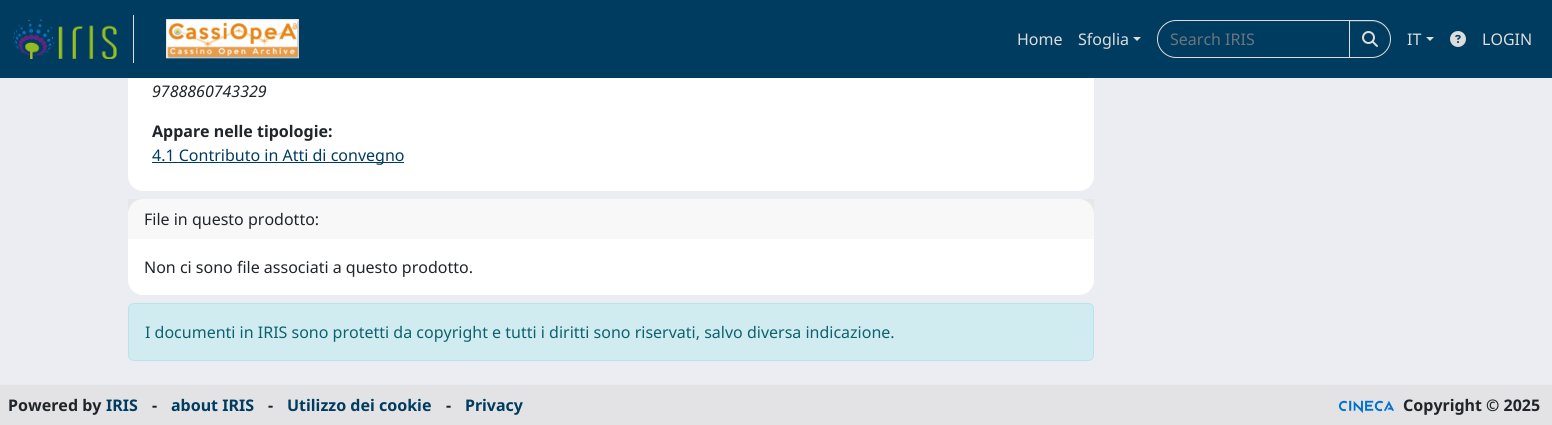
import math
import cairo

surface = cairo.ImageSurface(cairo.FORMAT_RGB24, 1552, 425)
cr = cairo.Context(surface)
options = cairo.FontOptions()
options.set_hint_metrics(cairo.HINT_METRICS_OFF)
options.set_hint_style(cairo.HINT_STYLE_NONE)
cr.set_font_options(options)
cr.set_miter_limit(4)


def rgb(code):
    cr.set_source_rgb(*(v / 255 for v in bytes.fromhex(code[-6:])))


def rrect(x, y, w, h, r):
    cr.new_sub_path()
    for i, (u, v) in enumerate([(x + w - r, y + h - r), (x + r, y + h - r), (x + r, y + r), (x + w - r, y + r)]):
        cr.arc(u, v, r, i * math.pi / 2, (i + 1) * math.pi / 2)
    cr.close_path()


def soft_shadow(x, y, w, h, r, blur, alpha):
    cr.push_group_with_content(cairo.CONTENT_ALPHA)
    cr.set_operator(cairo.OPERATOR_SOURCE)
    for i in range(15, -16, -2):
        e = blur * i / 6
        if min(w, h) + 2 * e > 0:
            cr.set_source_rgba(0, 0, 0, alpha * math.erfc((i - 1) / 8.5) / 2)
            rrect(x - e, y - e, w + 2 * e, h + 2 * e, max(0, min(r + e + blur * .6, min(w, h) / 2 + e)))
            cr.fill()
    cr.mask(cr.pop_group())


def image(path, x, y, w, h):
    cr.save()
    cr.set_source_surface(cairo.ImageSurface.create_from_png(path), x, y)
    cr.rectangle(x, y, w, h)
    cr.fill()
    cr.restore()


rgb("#ecedf2")
cr.paint()
rgb("#ffffff")
rrect(128, -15, 966, 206, 15)
cr.fill()
rgb("#003c5f")
cr.rectangle(0, 0, 1552, 78)
cr.fill()
rgb("#dddddd")
cr.rectangle(133, 15, 1, 48)
cr.fill()
image("img/1.png", 12, 19, 105, 40)
image("img/2.png", 166, 19, 133, 40)
cr.new_path()
cr.move_to(1133, 37)
cr.line_to(1141, 37)
cr.line_to(1137, 41)
cr.close_path()
cr.fill()
cr.new_path()
cr.move_to(1176, 20.5)
cr.line_to(1349.5, 20.5)
cr.line_to(1349.5, 57.5)
cr.line_to(1176, 57.5)
cr.curve_to(1166, 57.5, 1157.5, 49, 1157.5, 39)
cr.curve_to(1157.5, 29, 1166, 20.5, 1176, 20.5)
cr.close_path()
cr.set_line_width(1)
cr.stroke()
rgb("#000000")
soft_shadow(1349, 21, 42, 38, 19, 0.5, 0.07)
rgb("#003c5f")
cr.new_path()
cr.move_to(1349, 20)
cr.line_to(1372, 20)
cr.curve_to(1382.5, 20, 1391, 28.5, 1391, 39)
cr.curve_to(1391, 49.5, 1382.5, 58, 1372, 58)
cr.line_to(1349, 58)
cr.close_path()
cr.fill()
rgb("#265977")
cr.new_path()
cr.move_to(1350, 22)
cr.line_to(1372, 22)
cr.curve_to(1382, 22, 1390, 30, 1390, 39)
cr.curve_to(1390, 31, 1384, 23, 1376, 21)
cr.line_to(1350, 21)
cr.close_path()
cr.fill()
cr.new_path()
cr.move_to(1349.5, 20.5)
cr.line_to(1372, 20.5)
cr.curve_to(1382, 20.5, 1390.5, 29, 1390.5, 39)
cr.curve_to(1390.5, 49, 1382, 57.5, 1372, 57.5)
cr.line_to(1349.5, 57.5)
cr.close_path()
rgb("#dddddd")
cr.stroke()
image("img/3.png", 1362, 31, 16, 16)
cr.new_path()
cr.move_to(1426, 37)
cr.line_to(1434, 37)
cr.line_to(1430, 41)
cr.close_path()
cr.fill()
image("img/4.png", 1450, 31, 16, 16)
rgb("#003c5f")
cr.rectangle(152, 162, 252, 1)
cr.fill()
rgb("#ffffff")
rrect(128, 199, 966, 96, 15)
cr.fill()
cr.set_source_rgba(0, 0, 0, 0.03)
cr.rectangle(128, 199, 966, 40)
cr.fill()
rgb("#d1ecf1")
rrect(128.5, 303.5, 965, 57, 5.5)
cr.fill_preserve()
rgb("#b9e3ea")
cr.stroke()
rgb("#e3e3e5")
cr.rectangle(0, 385, 1552, 40)
cr.fill()
image("img/5.png", 1339, 400, 55, 13)
cr.select_font_face("Noto Sans")
cr.set_font_size(16)
rgb("#dddddd")
cr.move_to(1017, 45)
cr.show_text("Home")
cr.move_to(1078, 45)
cr.show_text("Sfoglia")
rgb("#6c757d")
cr.move_to(1170, 45)
cr.show_text("Search IRIS")
rgb("#dddddd")
cr.move_to(1407, 45)
cr.show_text("IT")
cr.move_to(1482, 45)
cr.show_text("LOGIN")
cr.select_font_face("Noto Sans", cairo.FONT_SLANT_ITALIC)
rgb("#212529")
cr.move_to(152, 97)
cr.show_text("9788860743329")
cr.select_font_face("Noto Sans", cairo.FONT_SLANT_NORMAL, cairo.FONT_WEIGHT_BOLD)
cr.move_to(152, 137)
cr.show_text("Appare nelle tipologie:")
cr.select_font_face("Noto Sans")
rgb("#003c5f")
cr.move_to(152, 161)
cr.show_text("4.1 Contributo in Atti di convegno")
rgb("#212529")
cr.move_to(144, 225)
cr.show_text("File in questo prodotto:")
cr.move_to(144, 273)
cr.show_text("Non ci sono file associati a questo prodotto.")
rgb("#0e616e")
cr.move_to(145, 338)
cr.show_text("I documenti in IRIS sono protetti da copyright e tutti i diritti sono riservati, salvo diversa indicazione.")
cr.select_font_face("Noto Sans", cairo.FONT_SLANT_NORMAL, cairo.FONT_WEIGHT_BOLD)
rgb("#212529")
cr.move_to(8, 411)
cr.show_text("Powered by")
rgb("#003c5f")
cr.move_to(106, 411)
cr.show_text("IRIS")
rgb("#212529")
cr.move_to(152, 411)
cr.show_text("-")
rgb("#003c5f")
cr.move_to(171, 411)
cr.show_text("about IRIS")
rgb("#212529")
cr.move_to(268, 411)
cr.show_text("-")
rgb("#003c5f")
cr.move_to(287, 411)
cr.show_text("Utilizzo dei cookie")
rgb("#212529")
cr.move_to(446, 411)
cr.show_text("-")
rgb("#003c5f")
cr.move_to(465, 411)
cr.show_text("Privacy")
rgb("#212529")
cr.move_to(1403, 411)
cr.show_text("Copyright © 2025")
surface.write_to_png("page.png")
